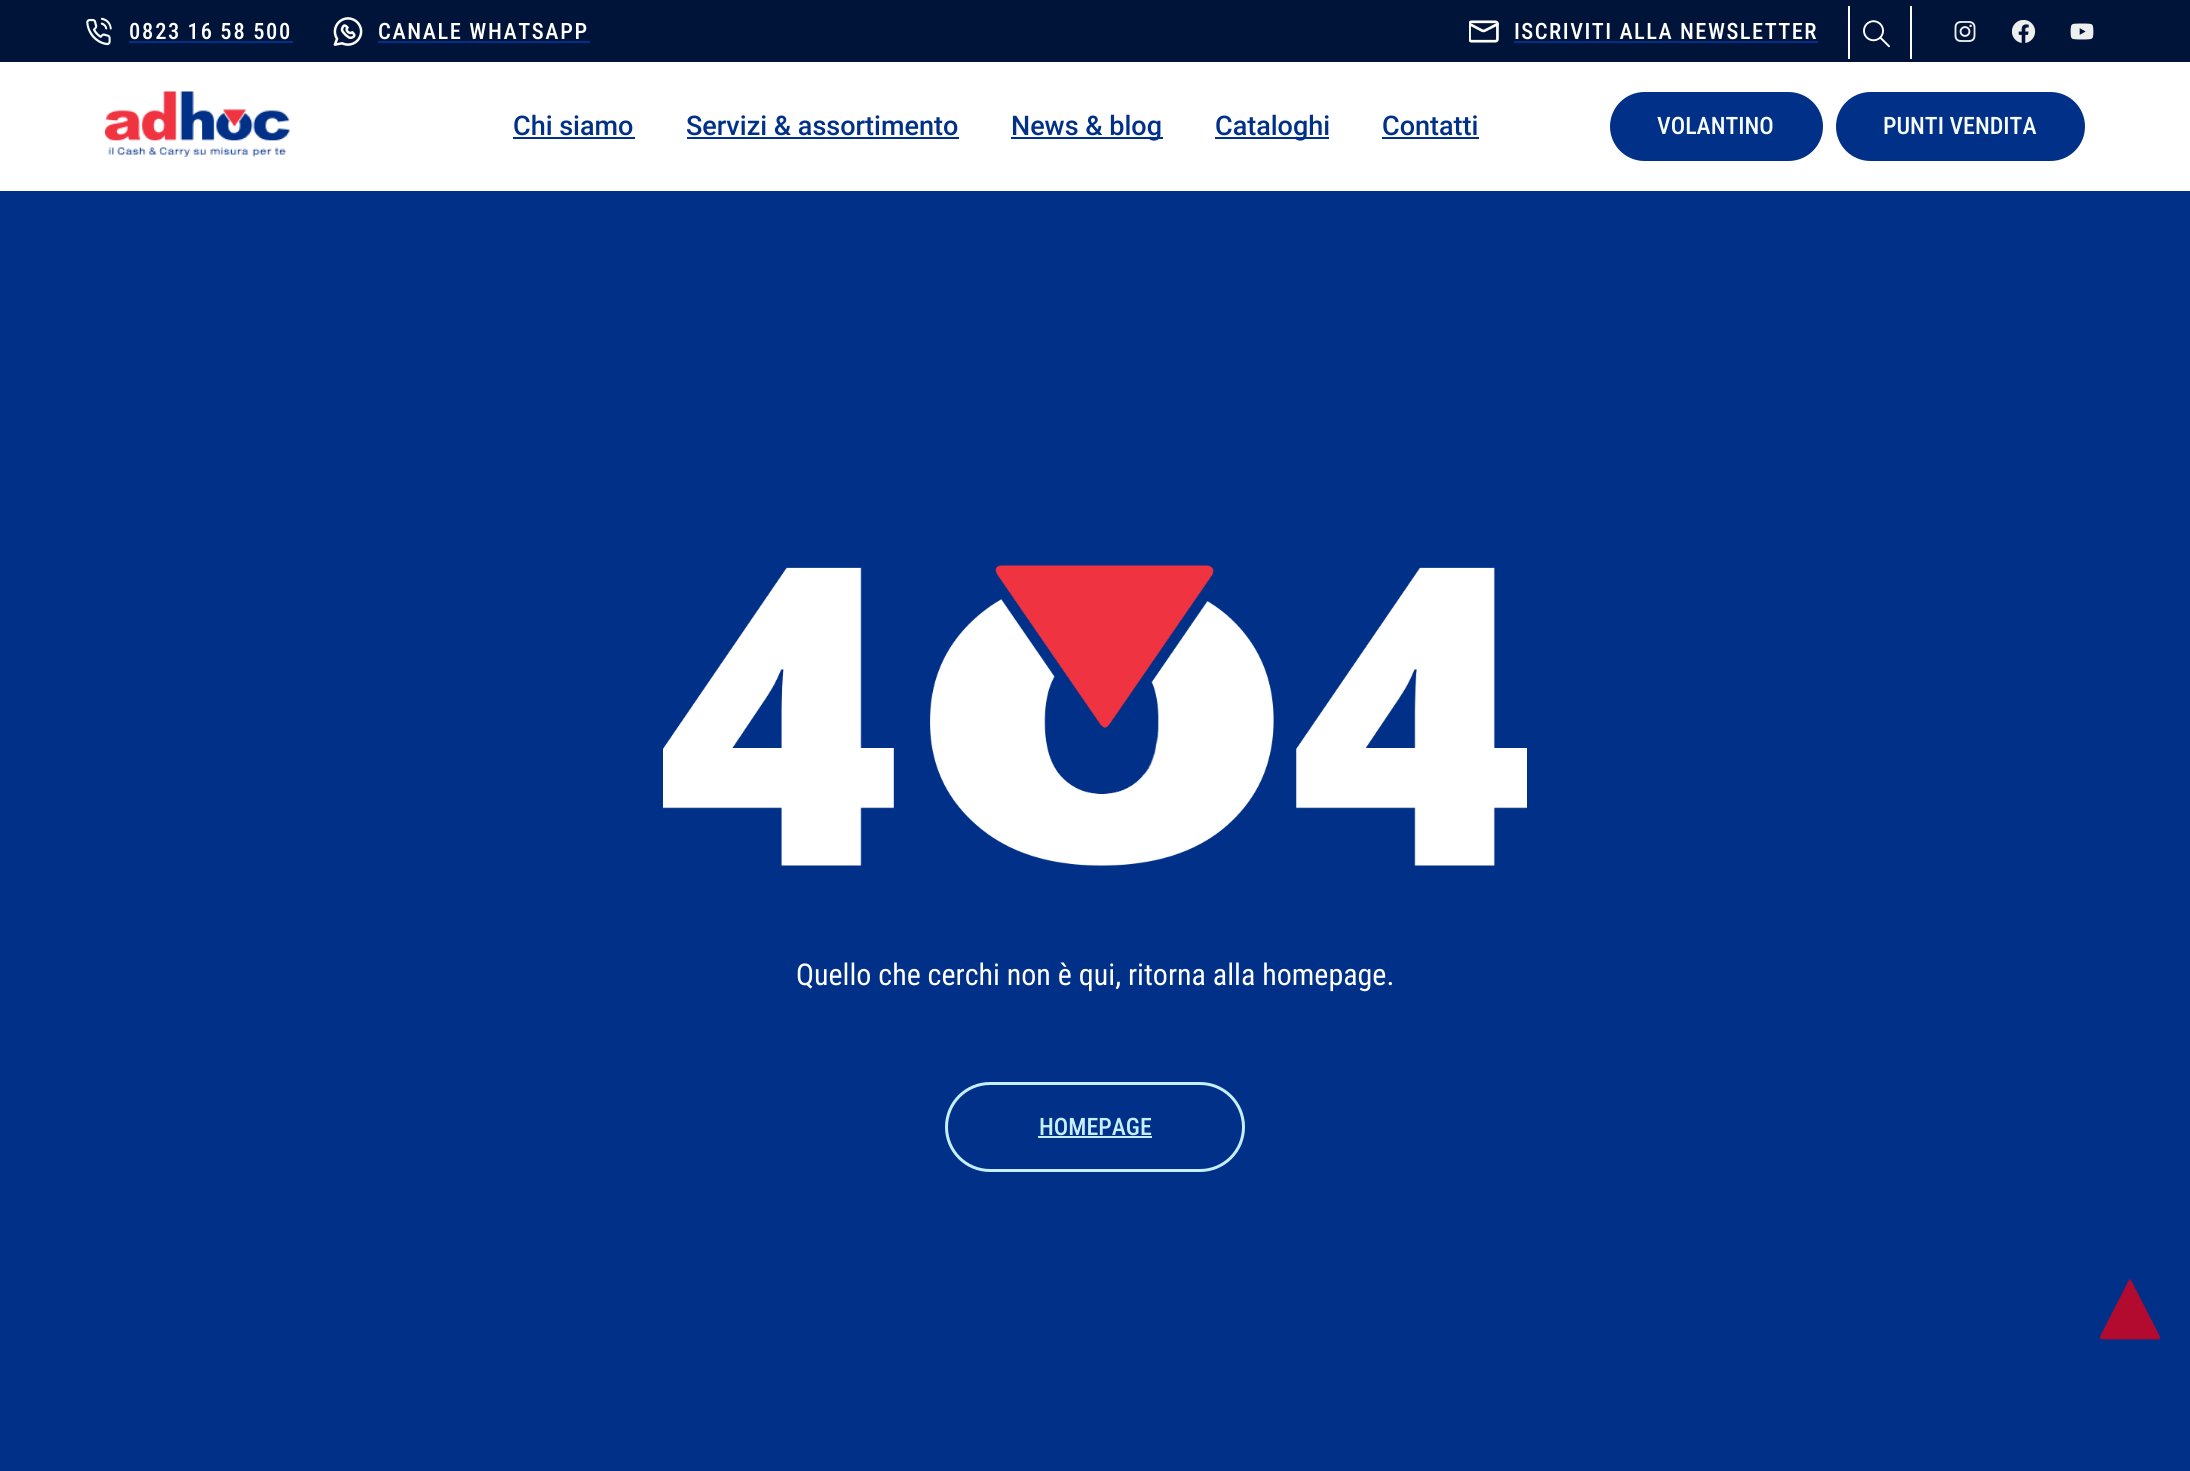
import math
import cairo

surface = cairo.ImageSurface(cairo.FORMAT_RGB24, 2190, 1471)
cr = cairo.Context(surface)
options = cairo.FontOptions()
options.set_hint_metrics(cairo.HINT_METRICS_OFF)
options.set_hint_style(cairo.HINT_STYLE_NONE)
cr.set_font_options(options)
cr.set_miter_limit(4)


def rgb(code):
    cr.set_source_rgb(*(v / 255 for v in bytes.fromhex(code[-6:])))


def tracked(x, y, s, letter, word):
    cr.move_to(x, y)
    for ch in s:
        cr.show_text(ch)
        cr.rel_move_to(letter + word * (ch == ' '), 0)


def rrect(x, y, w, h, r):
    cr.new_sub_path()
    for i, (u, v) in enumerate([(x + w - r, y + h - r), (x + r, y + h - r), (x + r, y + r), (x + w - r, y + r)]):
        cr.arc(u, v, r, i * math.pi / 2, (i + 1) * math.pi / 2)
    cr.close_path()


def image(path, x, y, w, h):
    cr.save()
    cr.set_source_surface(cairo.ImageSurface.create_from_png(path), x, y)
    cr.rectangle(x, y, w, h)
    cr.fill()
    cr.restore()


rgb("#ffffff")
cr.paint()
rgb("#00143a")
cr.rectangle(0, 0, 2190, 62)
cr.fill()
image("img/1.png", 86, 17, 26, 29)
rgb("#003087")
cr.rectangle(129, 41, 164, 2)
cr.fill()
image("img/2.png", 333, 17, 30, 29)
cr.rectangle(378, 41, 212, 2)
cr.fill()
image("img/3.png", 1469, 20, 30, 23)
for x, y, w, h, color in [
    (1514, 41, 304, 2, "#003087"),
    (1910, 6, 2, 53, "#ffffff"),
    (1848, 6, 2, 53, "#ffffff"),
]:
    rgb(color)
    cr.rectangle(x, y, w, h)
    cr.fill()
image("img/4.png", 1863, 20, 27, 28)
image("img/5.png", 1954, 21, 22, 21)
image("img/6.png", 2012, 20, 24, 23)
image("img/7.png", 2070, 23, 24, 17)
image("img/8.png", 105, 91, 185, 67)
for x, y, w, h, color in [
    (513, 137, 122, 2, "#003087"),
    (687, 137, 272, 2, "#003087"),
    (1011, 137, 152, 2, "#003087"),
    (1215, 137, 114, 2, "#003087"),
    (1382, 137, 97, 2, "#003087"),
]:
    rgb(color)
    cr.rectangle(x, y, w, h)
    cr.fill()
rrect(1610, 92, 213, 69, 34.5)
cr.fill()
rrect(1836, 92, 249, 69, 34.5)
cr.fill()
cr.rectangle(0, 191, 2190, 1280)
cr.fill()
image("img/9.png", 663, 565, 864, 301)
rrect(946.5, 1083.5, 297, 87, 43.5)
rgb("#c5effc")
cr.set_line_width(3)
cr.stroke()
cr.rectangle(1038, 1136, 114, 2)
cr.fill()
image("img/10.png", 2100, 1279, 60, 61)
cr.select_font_face("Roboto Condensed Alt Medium")
cr.set_font_size(22.5)
rgb("#ffffff")
tracked(129, 39, "0823 16 58 500", 1.6, 0)
cr.select_font_face("Roboto Condensed Medium")
tracked(378, 39, "CANALE WHATSAPP", 1.6, 0)
tracked(1514, 39, "ISCRIVITI ALLA NEWSLETTER", 1.5, 0)
cr.select_font_face("Roboto Medium")
cr.set_font_size(27)
rgb("#003087")
for x, y, s in [
    (513, 135, "Chi siamo"),
    (686, 135, "Servizi & assortimento"),
    (1011, 135, "News & blog"),
    (1215, 135, "Cataloghi"),
    (1382, 135, "Contatti"),
]:
    cr.move_to(x, y)
    cr.show_text(s)
cr.select_font_face("Roboto Condensed Medium")
cr.set_font_size(24)
rgb("#f7fcfd")
cr.move_to(1657, 134)
cr.show_text("VOLANTINO")
cr.move_to(1883, 134)
cr.show_text("PUNTI VENDITA")
cr.select_font_face("Roboto Condensed")
cr.set_font_size(30)
rgb("#ffffff")
cr.move_to(796, 985)
cr.show_text("Quello che cerchi non è qui, ritorna alla homepage.")
cr.select_font_face("Roboto Condensed Medium")
cr.set_font_size(24)
rgb("#c5effc")
cr.move_to(1039, 1135)
cr.show_text("HOMEPAGE")
surface.write_to_png("page.png")
